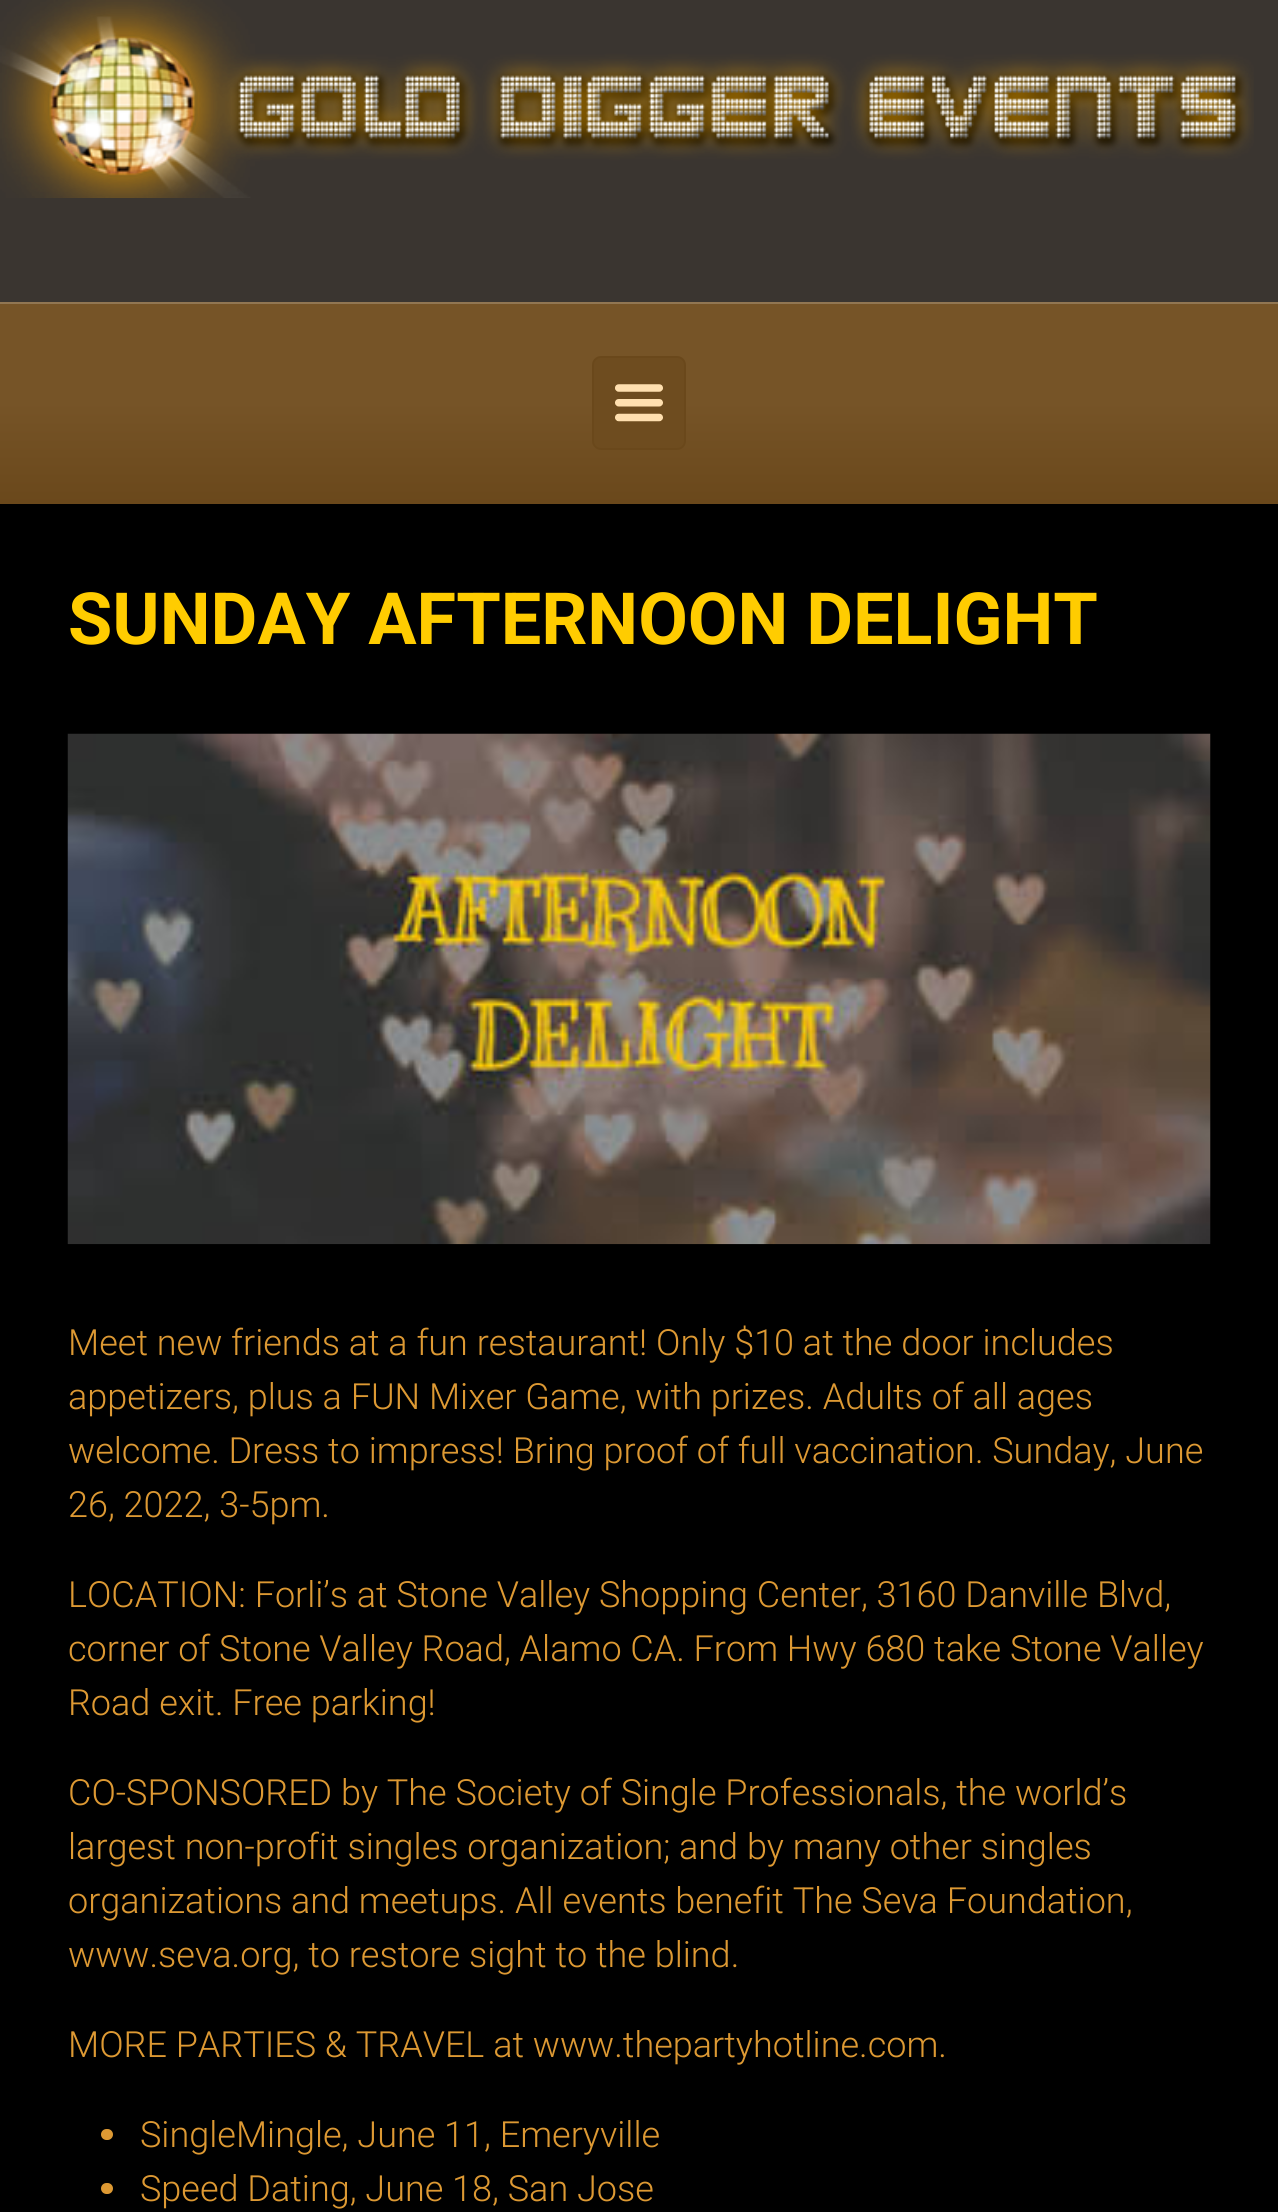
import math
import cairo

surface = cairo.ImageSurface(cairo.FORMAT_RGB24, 1278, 2212)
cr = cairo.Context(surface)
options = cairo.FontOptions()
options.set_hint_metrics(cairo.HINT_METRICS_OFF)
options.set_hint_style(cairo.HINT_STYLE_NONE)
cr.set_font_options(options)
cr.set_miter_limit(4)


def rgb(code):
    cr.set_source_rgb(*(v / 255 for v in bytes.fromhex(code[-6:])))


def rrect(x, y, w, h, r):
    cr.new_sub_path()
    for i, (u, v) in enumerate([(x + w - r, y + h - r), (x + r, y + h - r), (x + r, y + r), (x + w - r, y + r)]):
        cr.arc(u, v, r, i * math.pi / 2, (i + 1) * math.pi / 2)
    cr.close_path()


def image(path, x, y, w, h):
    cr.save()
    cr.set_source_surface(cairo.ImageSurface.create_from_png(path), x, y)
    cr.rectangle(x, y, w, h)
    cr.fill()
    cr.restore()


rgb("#3a3530")
cr.paint()
image("img/1.png", 0, 0, 1254, 198)
gradient = cairo.LinearGradient(639, 301, 639, 504)
gradient.add_color_stop_rgba(0.5, 0.463, 0.329, 0.153, 1)
gradient.add_color_stop_rgba(1, 0.416, 0.282, 0.106, 1)
cr.set_source(gradient)
cr.rectangle(0, 304, 1278, 200)
cr.fill()
rgb("#917652")
cr.rectangle(0, 302, 1278, 2)
cr.fill()
rgb("#6e4c1f")
rrect(593, 357, 92, 92, 8)
cr.fill_preserve()
rgb("#6a481b")
cr.stroke()
image("img/2.png", 615, 384, 48, 38)
rgb("#000000")
cr.rectangle(0, 504, 1278, 1708)
cr.fill()
image("img/3.png", 67, 733, 1144, 512)
rgb("#dd9933")
rrect(101, 2129, 12, 11, 5.5)
cr.fill()
rrect(101, 2183, 12, 11, 5.5)
cr.fill()
cr.select_font_face("Roboto", cairo.FONT_SLANT_NORMAL, cairo.FONT_WEIGHT_BOLD)
cr.set_font_size(72)
rgb("#ffcc00")
cr.move_to(68, 644)
cr.show_text("SUNDAY AFTERNOON DELIGHT")
cr.select_font_face("Roboto Light")
cr.set_font_size(36)
rgb("#dd9933")
for x, y, s in [
    (68, 1355, "Meet new friends at a fun restaurant! Only $10 at the door includes"),
    (68, 1409, "appetizers, plus a FUN Mixer Game, with prizes. Adults of all ages"),
    (68, 1463, "welcome. Dress to impress! Bring proof of full vaccination. Sunday, June"),
    (68, 1517, "26, 2022, 3-5pm."),
    (68, 1607, "LOCATION: Forli’s at Stone Valley Shopping Center, 3160 Danville Blvd,"),
    (68, 1661, "corner of Stone Valley Road, Alamo CA. From Hwy 680 take Stone Valley"),
    (68, 1715, "Road exit. Free parking!"),
    (68, 1805, "CO-SPONSORED by The Society of Single Professionals, the world’s"),
    (68, 1859, "largest non-profit singles organization; and by many other singles"),
    (68, 1913, "organizations and meetups. All events benefit The Seva Foundation,"),
    (68, 1967, "www.seva.org, to restore sight to the blind."),
    (68, 2057, "MORE PARTIES & TRAVEL at www.thepartyhotline.com."),
    (140, 2147, "SingleMingle, June 11, Emeryville"),
    (140, 2201, "Speed Dating, June 18, San Jose"),
]:
    cr.move_to(x, y)
    cr.show_text(s)
surface.write_to_png("page.png")
